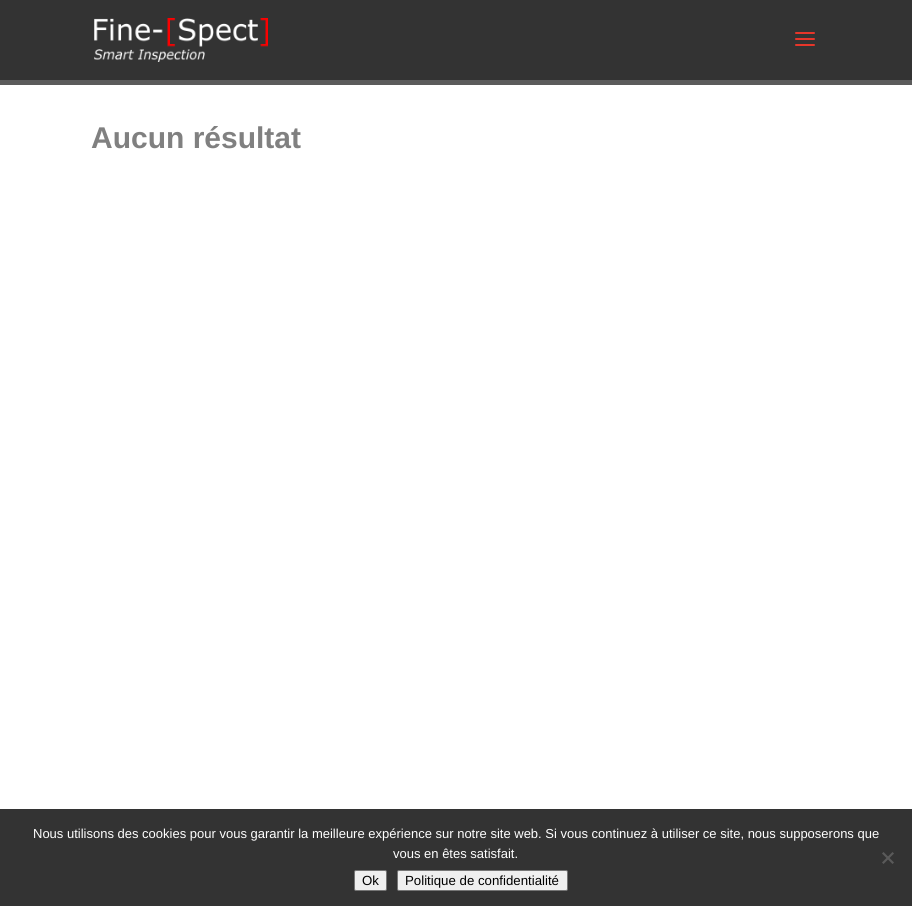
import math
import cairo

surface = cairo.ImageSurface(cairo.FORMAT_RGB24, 912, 906)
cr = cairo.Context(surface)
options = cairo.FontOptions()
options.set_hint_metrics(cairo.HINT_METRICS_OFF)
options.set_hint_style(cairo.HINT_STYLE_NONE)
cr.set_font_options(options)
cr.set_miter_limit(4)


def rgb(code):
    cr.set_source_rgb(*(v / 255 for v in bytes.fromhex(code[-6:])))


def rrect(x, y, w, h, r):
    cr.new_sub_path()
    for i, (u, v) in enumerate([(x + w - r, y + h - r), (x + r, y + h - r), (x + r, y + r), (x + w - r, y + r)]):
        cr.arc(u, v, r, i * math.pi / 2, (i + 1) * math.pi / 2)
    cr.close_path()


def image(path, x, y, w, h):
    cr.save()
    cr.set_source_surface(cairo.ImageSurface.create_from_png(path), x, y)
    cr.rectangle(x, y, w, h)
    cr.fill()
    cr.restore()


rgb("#ffffff")
cr.paint()
rgb("#333333")
cr.rectangle(0, 0, 912, 80)
cr.fill()
image("img/1.png", 94, 18, 174, 44)
image("img/2.png", 795, 32, 20, 14)
rgb("#5b5b5b")
cr.rectangle(0, 80, 912, 5)
cr.fill()
rgb("#333333")
cr.rectangle(0, 809, 912, 97)
cr.fill()
rgb("#5a5a5a")
cr.new_path()
cr.move_to(892.5, 852)
cr.line_to(894, 853.5)
cr.line_to(883.5, 864)
cr.line_to(882, 862.5)
cr.close_path()
cr.fill()
cr.new_path()
cr.move_to(882, 853.5)
cr.line_to(883.5, 852)
cr.line_to(894, 862.5)
cr.line_to(892.5, 864)
cr.close_path()
cr.fill()
rgb("#efefef")
rrect(354.5, 870.5, 32, 20, 1.5)
cr.fill_preserve()
rgb("#767676")
cr.set_line_width(1)
cr.stroke()
rgb("#efefef")
rrect(397.5, 870.5, 170, 20, 1.5)
cr.fill_preserve()
rgb("#767676")
cr.stroke()
cr.select_font_face("Liberation Sans", cairo.FONT_SLANT_NORMAL, cairo.FONT_WEIGHT_BOLD)
cr.set_font_size(30)
rgb("#808080")
cr.move_to(91, 148)
cr.show_text("Aucun résultat")
cr.select_font_face("Liberation Sans")
cr.set_font_size(13)
rgb("#ffffff")
cr.move_to(33, 838)
cr.show_text("Nous utilisons des cookies pour vous garantir la meilleure expérience sur notre site web. Si vous continuez à utiliser ce site, nous supposerons que")
cr.move_to(393, 858)
cr.show_text("vous en êtes satisfait.")
cr.set_font_size(13.25)
rgb("#000000")
cr.move_to(362, 885)
cr.show_text("Ok")
cr.move_to(405, 885)
cr.show_text("Politique de confidentialité")
surface.write_to_png("page.png")
